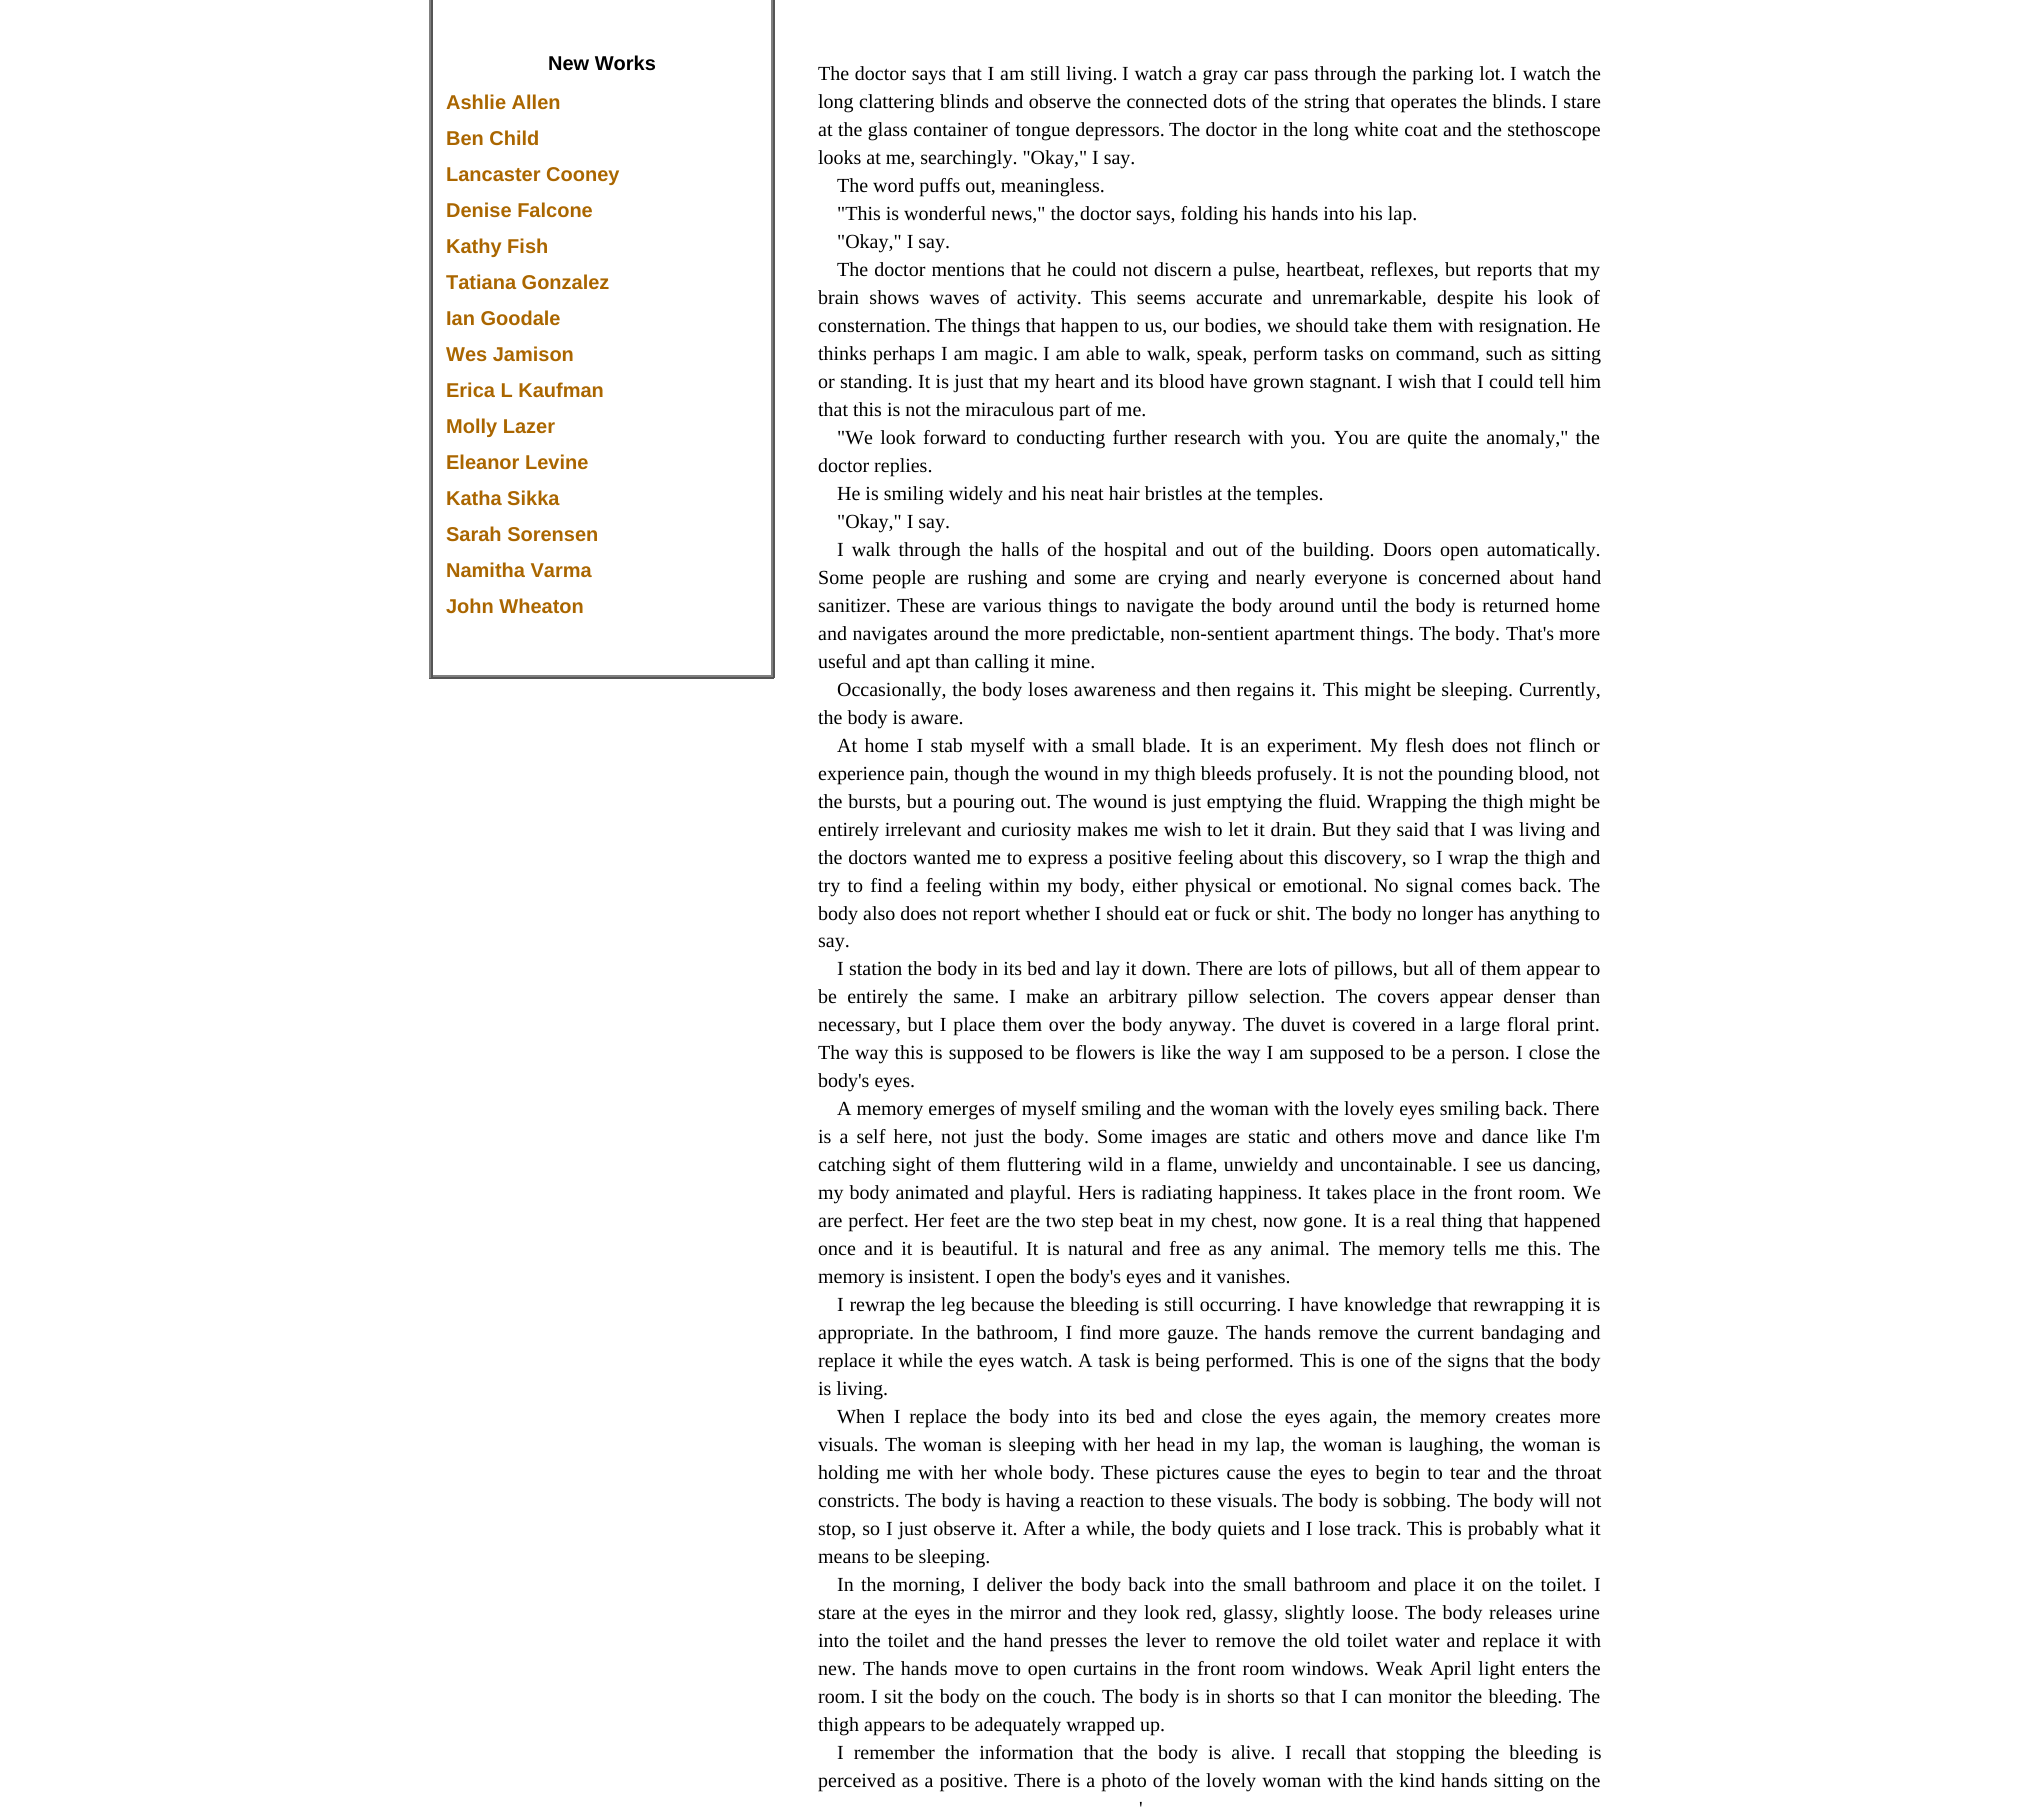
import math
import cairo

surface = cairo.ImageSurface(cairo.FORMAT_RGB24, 2042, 1811)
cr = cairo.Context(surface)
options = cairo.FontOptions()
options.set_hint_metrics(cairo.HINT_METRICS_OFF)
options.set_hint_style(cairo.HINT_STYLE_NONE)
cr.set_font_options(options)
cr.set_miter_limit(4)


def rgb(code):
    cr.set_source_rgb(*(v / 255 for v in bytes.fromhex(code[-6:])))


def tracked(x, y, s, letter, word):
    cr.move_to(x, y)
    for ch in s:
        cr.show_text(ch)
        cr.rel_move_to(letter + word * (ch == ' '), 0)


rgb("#ffffff")
cr.paint()
for x, y, w, h, color in [
    (773, 0, 2, 678, "#555555"),
    (429, 677, 345, 2, "#555555"),
    (429, 0, 2, 678, "#808080"),
    (771, 0, 2, 677, "#808080"),
    (431, 675, 342, 2, "#808080"),
    (431, 0, 2, 677, "#555555"),
]:
    rgb(color)
    cr.rectangle(x, y, w, h)
    cr.fill()
cr.select_font_face("Liberation Sans", cairo.FONT_SLANT_NORMAL, cairo.FONT_WEIGHT_BOLD)
cr.set_font_size(20)
rgb("#000000")
cr.move_to(548, 70)
cr.show_text("New Works")
rgb("#aa6600")
for x, y, s in [
    (446, 109, "Ashlie Allen"),
    (446, 145, "Ben Child"),
    (446, 181, "Lancaster Cooney"),
    (446, 217, "Denise Falcone"),
    (446, 253, "Kathy Fish"),
    (446, 289, "Tatiana Gonzalez"),
    (446, 325, "Ian Goodale"),
    (446, 361, "Wes Jamison"),
    (446, 397, "Erica L Kaufman"),
    (446, 433, "Molly Lazer"),
    (446, 469, "Eleanor Levine"),
    (446, 505, "Katha Sikka"),
    (446, 541, "Sarah Sorensen"),
    (446, 577, "Namitha Varma"),
    (446, 613, "John Wheaton"),
]:
    cr.move_to(x, y)
    cr.show_text(s)
cr.select_font_face("Liberation Serif")
rgb("#000000")
tracked(818, 80, "The doctor says that I am still living.", 0, 0.75)
tracked(1122, 80, "I watch a gray car pass through the parking lot.", 0, 0.75)
tracked(1510, 80, "I watch the", 0, 1)
for x, y, s in [
    (818, 108, "long clattering blinds and observe the connected dots of the string that operates the blinds."),
    (1551, 108, "I stare"),
    (818, 136, "at the glass container of tongue depressors."),
    (1169, 136, "The doctor in the long white coat and the stethoscope"),
]:
    tracked(x, y, s, 0, 0.5)
for x, y, s in [
    (818, 164, "looks at me, searchingly. \"Okay,\" I say."),
    (837, 192, "The word puffs out, meaningless."),
    (837, 220, "\"This is wonderful news,\" the doctor says, folding his hands into his lap."),
    (837, 248, "\"Okay,\" I say."),
]:
    cr.move_to(x, y)
    cr.show_text(s)
tracked(837, 276, "The doctor mentions that he could not discern a pulse, heartbeat, reflexes, but reports that my", 0, 1.1)
tracked(818, 304, "brain shows waves of activity.", 0, 5.25)
tracked(1091, 304, "This seems accurate and unremarkable, despite his look of", 0, 5.25)
cr.move_to(818, 332)
cr.show_text("consternation.")
tracked(935, 332, "The things that happen to us, our bodies, we should take them with resignation.", 0, 0.25)
cr.move_to(1577, 332)
cr.show_text("He")
tracked(818, 360, "thinks perhaps I am magic.", 0, 1)
tracked(1043, 360, "I am able to walk, speak, perform tasks on command, such as sitting", 0, 1)
tracked(818, 388, "or standing.", 0, 0.4)
tracked(918, 388, "It is just that my heart and its blood have grown stagnant.", 0, 0.4)
tracked(1386, 388, "I wish that I could tell him", 0, 0.5)
cr.move_to(818, 416)
cr.show_text("that this is not the miraculous part of me.")
tracked(837, 444, "\"We look forward to conducting further research with you.", 0, 2.25)
tracked(1334, 444, "You are quite the anomaly,\" the", 0, 2.25)
for x, y, s in [
    (818, 472, "doctor replies."),
    (837, 500, "He is smiling widely and his neat hair bristles at the temples."),
    (837, 528, "\"Okay,\" I say."),
]:
    cr.move_to(x, y)
    cr.show_text(s)
tracked(837, 556, "I walk through the halls of the hospital and out of the building.", 0, 3)
tracked(1383, 556, "Doors open automatically.", 0, 3)
tracked(818, 584, "Some people are rushing and some are crying and nearly everyone is concerned about hand", 0, 3.75)
cr.move_to(818, 612)
cr.show_text("sanitizer.")
tracked(897, 612, "These are various things to navigate the body around until the body is returned home", 0, 1.75)
tracked(818, 640, "and navigates around the more predictable, non-sentient apartment things.", 0, 0.5)
for x, y, s in [
    (1419, 640, "The body."),
    (1506, 640, "That's more"),
    (818, 668, "useful and apt than calling it mine."),
]:
    cr.move_to(x, y)
    cr.show_text(s)
tracked(837, 696, "Occasionally, the body loses awareness and then regains it.", 0, 0.75)
tracked(1323, 696, "This might be sleeping.", 0, 0.75)
cr.move_to(1519, 696)
cr.show_text("Currently,")
cr.move_to(818, 724)
cr.show_text("the body is aware.")
for x, y, s in [
    (837, 752, "At home I stab myself with a small blade."),
    (1200, 752, "It is an experiment."),
    (1370, 752, "My flesh does not flinch or"),
]:
    tracked(x, y, s, 0, 2.5)
cr.move_to(818, 780)
cr.show_text("experience pain, though the wound in my thigh bleeds profusely. It is not the pounding blood, not")
tracked(818, 808, "the bursts, but a pouring out.", 0, 0.75)
tracked(1056, 808, "The wound is just emptying the fluid.", 0, 0.75)
tracked(1367, 808, "Wrapping the thigh might be", 0, 0.5)
tracked(818, 836, "entirely irrelevant and curiosity makes me wish to let it drain.", 0, 0.6)
tracked(1322, 836, "But they said that I was living and", 0, 0.6)
tracked(818, 864, "the doctors wanted me to express a positive feeling about this discovery, so I wrap the thigh and", 0, 0.8)
tracked(818, 892, "try to find a feeling within my body, either physical or emotional.", 0, 2.25)
tracked(1374, 892, "No signal comes back.", 0, 2.25)
for x, y, s in [
    (1569, 892, "The"),
    (818, 920, "body also does not report whether I should eat or fuck or shit. The body no longer has anything to"),
    (818, 947, "say."),
]:
    cr.move_to(x, y)
    cr.show_text(s)
tracked(837, 975, "I station the body in its bed and lay it down. There are lots of pillows, but all of them appear to", 0, 0.25)
for x, y, s in [
    (818, 1003, "be entirely the same."),
    (1009, 1003, "I make an arbitrary pillow selection."),
    (1336, 1003, "The covers appear denser than"),
]:
    tracked(x, y, s, 0, 5.25)
tracked(818, 1031, "necessary, but I place them over the body anyway.", 0, 1.75)
tracked(1243, 1031, "The duvet is covered in a large floral print.", 0, 1.75)
tracked(818, 1059, "The way this is supposed to be flowers is like the way I am supposed to be a person.", 0, 1)
tracked(1516, 1059, "I close the", 0, 1)
cr.move_to(818, 1087)
cr.show_text("body's eyes.")
tracked(837, 1115, "A memory emerges of myself smiling and the woman with the lovely eyes smiling back. There", 0, 0.1)
tracked(818, 1143, "is a self here, not just the body.", 0, 3.1)
tracked(1097, 1143, "Some images are static and others move and dance like I'm", 0, 3.1)
tracked(818, 1171, "catching sight of them fluttering wild in a flame, unwieldy and uncontainable.", 0, 1.4)
tracked(1463, 1171, "I see us dancing,", 0, 1.5)
tracked(818, 1199, "my body animated and playful.", 0, 1)
tracked(1078, 1199, "Hers is radiating happiness.", 0, 1.1)
tracked(1308, 1199, "It takes place in the front room.", 0, 1)
cr.move_to(1573, 1199)
cr.show_text("We")
for x, y, s in [
    (818, 1227, "are perfect."),
    (914, 1227, "Her feet are the two step beat in my chest, now gone."),
    (1354, 1227, "It is a real thing that happened"),
]:
    tracked(x, y, s, 0, 0.75)
for x, y, s in [
    (818, 1255, "once and it is beautiful."),
    (1026, 1255, "It is natural and free as any animal."),
    (1339, 1255, "The memory tells me this."),
]:
    tracked(x, y, s, 0, 3.25)
cr.move_to(1569, 1255)
cr.show_text("The")
cr.move_to(818, 1283)
cr.show_text("memory is insistent. I open the body's eyes and it vanishes.")
tracked(837, 1311, "I rewrap the leg because the bleeding is still occurring.", 0, 0.75)
tracked(1288, 1311, "I have knowledge that rewrapping it is", 0, 0.75)
cr.move_to(818, 1339)
cr.show_text("appropriate.")
tracked(921, 1339, "In the bathroom, I find more gauze.", 0, 2.25)
tracked(1226, 1339, "The hands remove the current bandaging and", 0, 2.25)
for x, y, s in [
    (818, 1367, "replace it while the eyes watch."),
    (1078, 1367, "A task is being performed."),
    (1300, 1367, "This is one of the signs that the body"),
]:
    tracked(x, y, s, 0, 0.75)
cr.move_to(818, 1395)
cr.show_text("is living.")
tracked(837, 1423, "When I replace the body into its bed and close the eyes again, the memory creates more", 0, 3.9)
cr.move_to(818, 1451)
cr.show_text("visuals.")
tracked(885, 1451, "The woman is sleeping with her head in my lap, the woman is laughing, the woman is", 0, 1.75)
tracked(818, 1479, "holding me with her whole body.", 0, 2.25)
tracked(1101, 1479, "These pictures cause the eyes to begin to tear and the throat", 0, 2.25)
cr.move_to(818, 1507)
cr.show_text("constricts.")
tracked(905, 1507, "The body is having a reaction to these visuals.", 0, 0.4)
tracked(1282, 1507, "The body is sobbing.", 0, 0.4)
tracked(1457, 1507, "The body will not", 0, 0.5)
for x, y, s in [
    (818, 1535, "stop, so I just observe it."),
    (1023, 1535, "After a while, the body quiets and I lose track."),
    (1407, 1535, "This is probably what it"),
]:
    tracked(x, y, s, 0, 0.9)
cr.move_to(818, 1563)
cr.show_text("means to be sleeping.")
tracked(837, 1591, "In the morning, I deliver the body back into the small bathroom and place it on the toilet.", 0, 2.25)
cr.move_to(1594, 1591)
cr.show_text("I")
tracked(818, 1619, "stare at the eyes in the mirror and they look red, glassy, slightly loose.", 0, 1.6)
tracked(1405, 1619, "The body releases urine", 0, 1.5)
tracked(818, 1647, "into the toilet and the hand presses the lever to remove the old toilet water and replace it with", 0, 2.1)
cr.move_to(818, 1675)
cr.show_text("new.")
tracked(863, 1675, "The hands move to open curtains in the front room windows.", 0, 1.75)
tracked(1376, 1675, "Weak April light enters the", 0, 1.75)
cr.move_to(818, 1703)
cr.show_text("room.")
tracked(871, 1703, "I sit the body on the couch.", 0, 1.25)
tracked(1102, 1703, "The body is in shorts so that I can monitor the bleeding.", 0, 1.25)
cr.move_to(1569, 1703)
cr.show_text("The")
cr.move_to(818, 1731)
cr.show_text("thigh appears to be adequately wrapped up.")
tracked(837, 1759, "I remember the information that the body is alive.", 0, 5)
tracked(1285, 1759, "I recall that stopping the bleeding is", 0, 5)
tracked(818, 1787, "perceived as a positive.", 0, 1.1)
tracked(1014, 1787, "There is a photo of the lovely woman with the kind hands sitting on the", 0, 1.1)
tracked(1139, 1815, "'", 0, 1.5)
surface.write_to_png("page.png")
